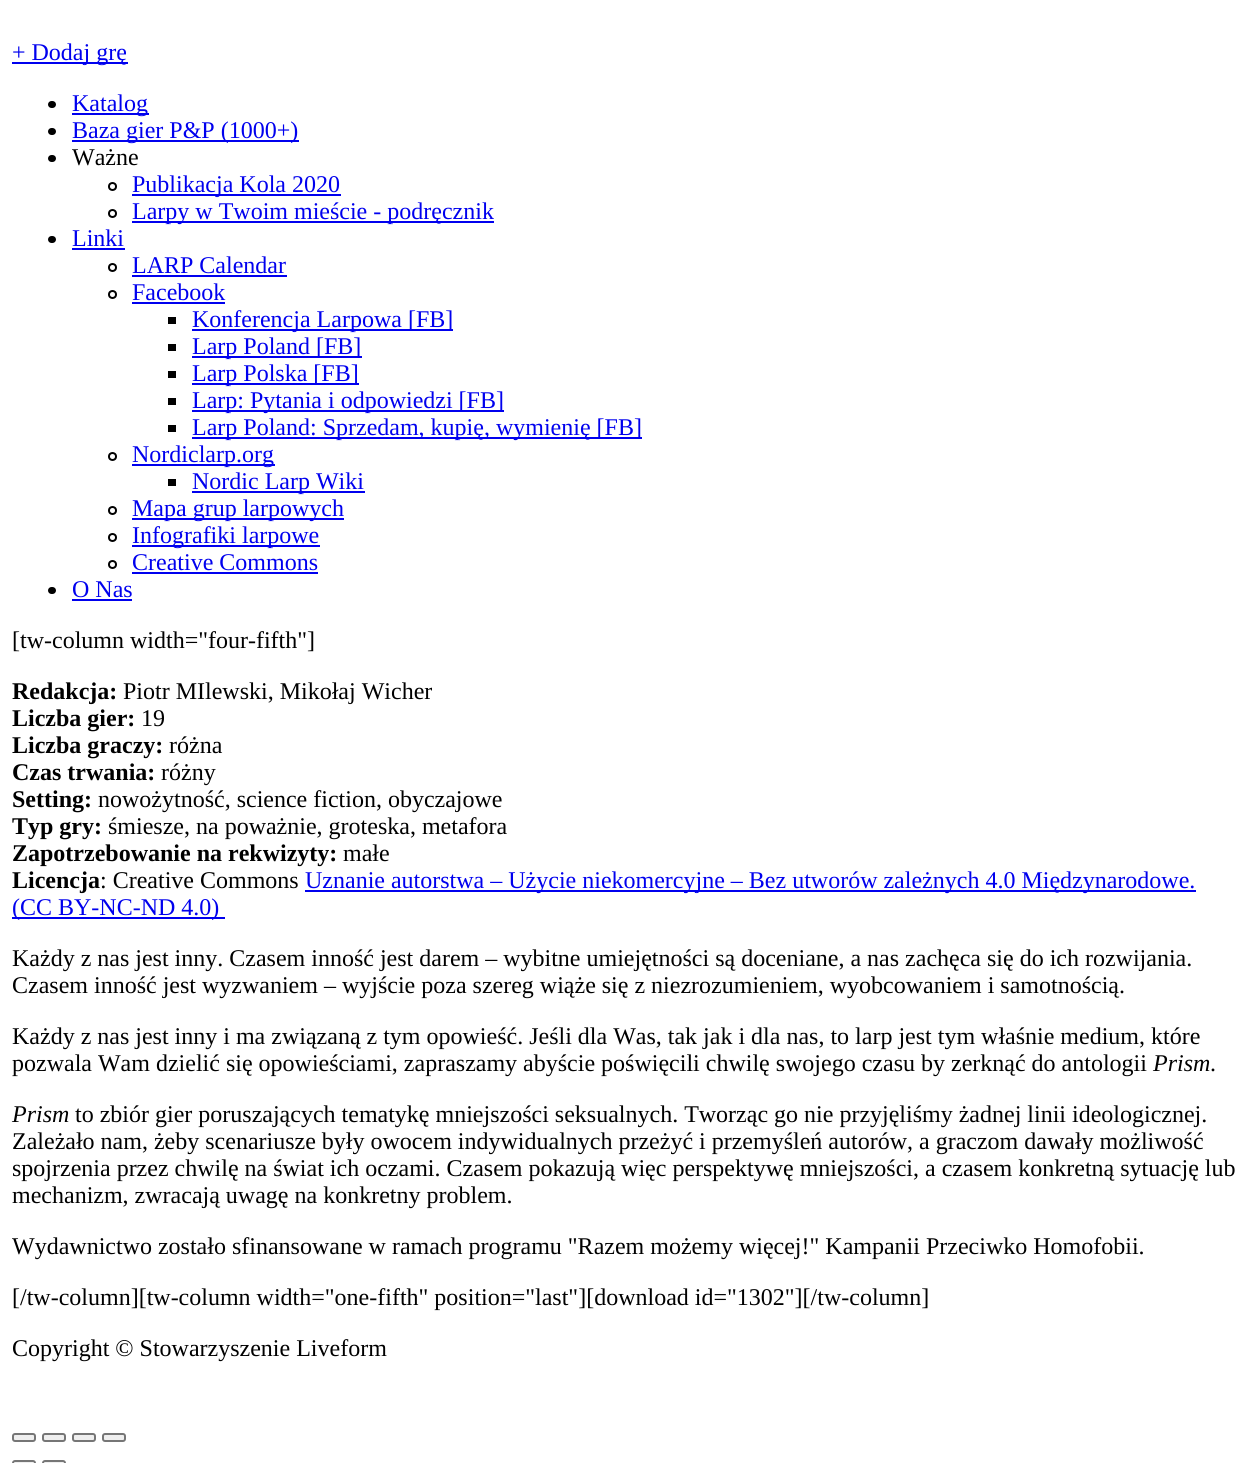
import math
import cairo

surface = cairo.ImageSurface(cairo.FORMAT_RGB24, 1252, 1463)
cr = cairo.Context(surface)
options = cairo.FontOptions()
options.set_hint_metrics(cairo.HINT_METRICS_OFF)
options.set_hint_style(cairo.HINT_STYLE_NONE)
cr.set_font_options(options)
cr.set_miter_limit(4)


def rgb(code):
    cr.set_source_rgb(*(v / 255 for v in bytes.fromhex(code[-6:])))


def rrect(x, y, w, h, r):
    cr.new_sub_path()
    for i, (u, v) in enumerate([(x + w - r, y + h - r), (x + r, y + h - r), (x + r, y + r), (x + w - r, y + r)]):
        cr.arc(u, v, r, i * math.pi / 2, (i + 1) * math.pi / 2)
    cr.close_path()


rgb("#ffffff")
cr.paint()
rgb("#0000ee")
cr.rectangle(12, 62, 116, 2)
cr.fill()
rgb("#000000")
rrect(48, 101, 8, 7, 3.5)
cr.fill()
rgb("#0000ee")
cr.rectangle(72, 113, 77, 2)
cr.fill()
rgb("#000000")
rrect(48, 128, 8, 7, 3.5)
cr.fill()
rgb("#0000ee")
cr.rectangle(72, 140, 227, 2)
cr.fill()
rgb("#000000")
rrect(48, 155, 8, 7, 3.5)
cr.fill()
cr.arc(112.5, 186.5, 3.5, 0, 2 * math.pi)
cr.stroke()
rgb("#0000ee")
cr.rectangle(132, 194, 209, 2)
cr.fill()
cr.arc(112.5, 213.5, 3.5, 0, 2 * math.pi)
rgb("#000000")
cr.stroke()
rgb("#0000ee")
cr.rectangle(132, 221, 362, 2)
cr.fill()
rgb("#000000")
rrect(48, 236, 8, 7, 3.5)
cr.fill()
rgb("#0000ee")
cr.rectangle(72, 248, 53, 2)
cr.fill()
cr.arc(112.5, 267.5, 3.5, 0, 2 * math.pi)
rgb("#000000")
cr.stroke()
rgb("#0000ee")
cr.rectangle(132, 275, 155, 2)
cr.fill()
cr.arc(112.5, 294.5, 3.5, 0, 2 * math.pi)
rgb("#000000")
cr.stroke()
for x, y, w, h, color in [
    (132, 302, 93, 2, "#0000ee"),
    (168, 317, 8, 7, "#000000"),
    (192, 329, 261, 2, "#0000ee"),
    (168, 344, 8, 7, "#000000"),
    (192, 356, 170, 2, "#0000ee"),
    (168, 371, 8, 7, "#000000"),
    (192, 383, 167, 2, "#0000ee"),
    (168, 398, 8, 7, "#000000"),
    (192, 410, 312, 2, "#0000ee"),
    (168, 425, 8, 7, "#000000"),
    (192, 437, 450, 2, "#0000ee"),
]:
    rgb(color)
    cr.rectangle(x, y, w, h)
    cr.fill()
cr.arc(112.5, 456.5, 3.5, 0, 2 * math.pi)
rgb("#000000")
cr.stroke()
for x, y, w, h, color in [
    (132, 464, 143, 2, "#0000ee"),
    (168, 479, 8, 7, "#000000"),
    (192, 491, 173, 2, "#0000ee"),
]:
    rgb(color)
    cr.rectangle(x, y, w, h)
    cr.fill()
cr.arc(112.5, 510.5, 3.5, 0, 2 * math.pi)
rgb("#000000")
cr.stroke()
rgb("#0000ee")
cr.rectangle(132, 518, 212, 2)
cr.fill()
cr.arc(112.5, 537.5, 3.5, 0, 2 * math.pi)
rgb("#000000")
cr.stroke()
rgb("#0000ee")
cr.rectangle(132, 545, 188, 2)
cr.fill()
cr.arc(112.5, 564.5, 3.5, 0, 2 * math.pi)
rgb("#000000")
cr.stroke()
rgb("#0000ee")
cr.rectangle(132, 572, 186, 2)
cr.fill()
rgb("#000000")
rrect(48, 587, 8, 7, 3.5)
cr.fill()
for x, y, w, h, color in [
    (72, 599, 60, 2, "#0000ee"),
    (305, 890, 891, 2, "#0000ee"),
    (12, 917, 213, 2, "#0000ee"),
]:
    rgb(color)
    cr.rectangle(x, y, w, h)
    cr.fill()
rgb("#efefef")
rrect(13, 1434, 22, 7, 2)
cr.fill_preserve()
rgb("#767676")
cr.stroke()
rgb("#efefef")
rrect(43, 1434, 22, 7, 2)
cr.fill_preserve()
rgb("#767676")
cr.stroke()
rgb("#efefef")
rrect(73, 1434, 22, 7, 2)
cr.fill_preserve()
rgb("#767676")
cr.stroke()
rgb("#efefef")
rrect(103, 1434, 22, 7, 2)
cr.fill_preserve()
rgb("#767676")
cr.stroke()
rgb("#efefef")
rrect(13, 1461, 22, 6, 2)
cr.fill_preserve()
rgb("#767676")
cr.stroke()
rgb("#efefef")
rrect(43, 1461, 22, 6, 2)
cr.fill_preserve()
rgb("#767676")
cr.stroke()
cr.select_font_face("Liberation Serif")
cr.set_font_size(24)
rgb("#0000ee")
for x, y, s in [
    (12, 60, "+ Dodaj grę"),
    (72, 111, "Katalog"),
    (72, 138, "Baza gier P&P (1000+)"),
]:
    cr.move_to(x, y)
    cr.show_text(s)
rgb("#000000")
cr.move_to(72, 165)
cr.show_text("Ważne")
rgb("#0000ee")
for x, y, s in [
    (132, 192, "Publikacja Kola 2020"),
    (132, 219, "Larpy w Twoim mieście - podręcznik"),
    (72, 246, "Linki"),
    (132, 273, "LARP Calendar"),
    (132, 300, "Facebook"),
    (192, 327, "Konferencja Larpowa [FB]"),
    (192, 354, "Larp Poland [FB]"),
    (192, 381, "Larp Polska [FB]"),
    (192, 408, "Larp: Pytania i odpowiedzi [FB]"),
    (192, 435, "Larp Poland: Sprzedam, kupię, wymienię [FB]"),
    (132, 462, "Nordiclarp.org"),
    (192, 489, "Nordic Larp Wiki"),
    (132, 516, "Mapa grup larpowych"),
    (132, 543, "Infografiki larpowe"),
    (132, 570, "Creative Commons"),
    (72, 597, "O Nas"),
]:
    cr.move_to(x, y)
    cr.show_text(s)
rgb("#000000")
cr.move_to(12, 648)
cr.show_text("[tw-column width=\"four-fifth\"]")
cr.select_font_face("Liberation Serif", cairo.FONT_SLANT_NORMAL, cairo.FONT_WEIGHT_BOLD)
cr.move_to(12, 699)
cr.show_text("Redakcja:")
cr.select_font_face("Liberation Serif")
cr.move_to(123, 699)
cr.show_text("Piotr MIlewski, Mikołaj Wicher")
cr.select_font_face("Liberation Serif", cairo.FONT_SLANT_NORMAL, cairo.FONT_WEIGHT_BOLD)
cr.move_to(12, 726)
cr.show_text("Liczba gier:")
cr.select_font_face("Liberation Serif")
cr.move_to(141, 726)
cr.show_text("19")
cr.select_font_face("Liberation Serif", cairo.FONT_SLANT_NORMAL, cairo.FONT_WEIGHT_BOLD)
cr.move_to(12, 753)
cr.show_text("Liczba graczy:")
cr.select_font_face("Liberation Serif")
cr.move_to(169, 753)
cr.show_text("różna")
cr.select_font_face("Liberation Serif", cairo.FONT_SLANT_NORMAL, cairo.FONT_WEIGHT_BOLD)
cr.move_to(12, 780)
cr.show_text("Czas trwania:")
cr.select_font_face("Liberation Serif")
cr.move_to(161, 780)
cr.show_text("różny")
cr.select_font_face("Liberation Serif", cairo.FONT_SLANT_NORMAL, cairo.FONT_WEIGHT_BOLD)
cr.move_to(12, 807)
cr.show_text("Setting:")
cr.select_font_face("Liberation Serif")
cr.move_to(98, 807)
cr.show_text("nowożytność, science fiction, obyczajowe")
cr.select_font_face("Liberation Serif", cairo.FONT_SLANT_NORMAL, cairo.FONT_WEIGHT_BOLD)
cr.move_to(12, 834)
cr.show_text("Typ gry:")
cr.select_font_face("Liberation Serif")
cr.move_to(108, 834)
cr.show_text("śmiesze, na poważnie, groteska, metafora")
cr.select_font_face("Liberation Serif", cairo.FONT_SLANT_NORMAL, cairo.FONT_WEIGHT_BOLD)
cr.move_to(12, 861)
cr.show_text("Zapotrzebowanie na rekwizyty:")
cr.select_font_face("Liberation Serif")
cr.move_to(343, 861)
cr.show_text("małe")
cr.select_font_face("Liberation Serif", cairo.FONT_SLANT_NORMAL, cairo.FONT_WEIGHT_BOLD)
cr.move_to(12, 888)
cr.show_text("Licencja")
cr.select_font_face("Liberation Serif")
cr.move_to(100, 888)
cr.show_text(": Creative Commons")
rgb("#0000ee")
cr.move_to(305, 888)
cr.show_text("Uznanie autorstwa – Użycie niekomercyjne – Bez utworów zależnych 4.0 Międzynarodowe.")
cr.move_to(12, 915)
cr.show_text("(CC BY-NC-ND 4.0)")
rgb("#000000")
for x, y, s in [
    (12, 966, "Każdy z nas jest inny. Czasem inność jest darem – wybitne umiejętności są doceniane, a nas zachęca się do ich rozwijania."),
    (12, 993, "Czasem inność jest wyzwaniem – wyjście poza szereg wiąże się z niezrozumieniem, wyobcowaniem i samotnością."),
    (12, 1044, "Każdy z nas jest inny i ma związaną z tym opowieść. Jeśli dla Was, tak jak i dla nas, to larp jest tym właśnie medium, które"),
    (12, 1071, "pozwala Wam dzielić się opowieściami, zapraszamy abyście poświęcili chwilę swojego czasu by zerknąć do antologii"),
]:
    cr.move_to(x, y)
    cr.show_text(s)
cr.select_font_face("Liberation Serif", cairo.FONT_SLANT_ITALIC)
cr.move_to(1153, 1071)
cr.show_text("Prism")
cr.select_font_face("Liberation Serif")
cr.move_to(1210, 1071)
cr.show_text(".")
cr.select_font_face("Liberation Serif", cairo.FONT_SLANT_ITALIC)
cr.move_to(12, 1122)
cr.show_text("Prism")
cr.select_font_face("Liberation Serif")
for x, y, s in [
    (75, 1122, "to zbiór gier poruszających tematykę mniejszości seksualnych. Tworząc go nie przyjęliśmy żadnej linii ideologicznej."),
    (12, 1149, "Zależało nam, żeby scenariusze były owocem indywidualnych przeżyć i przemyśleń autorów, a graczom dawały możliwość"),
    (12, 1176, "spojrzenia przez chwilę na świat ich oczami. Czasem pokazują więc perspektywę mniejszości, a czasem konkretną sytuację lub"),
    (12, 1203, "mechanizm, zwracają uwagę na konkretny problem."),
    (12, 1254, "Wydawnictwo zostało sfinansowane w ramach programu \"Razem możemy więcej!\" Kampanii Przeciwko Homofobii."),
    (12, 1305, "[/tw-column][tw-column width=\"one-fifth\" position=\"last\"][download id=\"1302\"][/tw-column]"),
    (12, 1356, "Copyright © Stowarzyszenie Liveform"),
]:
    cr.move_to(x, y)
    cr.show_text(s)
surface.write_to_png("page.png")
